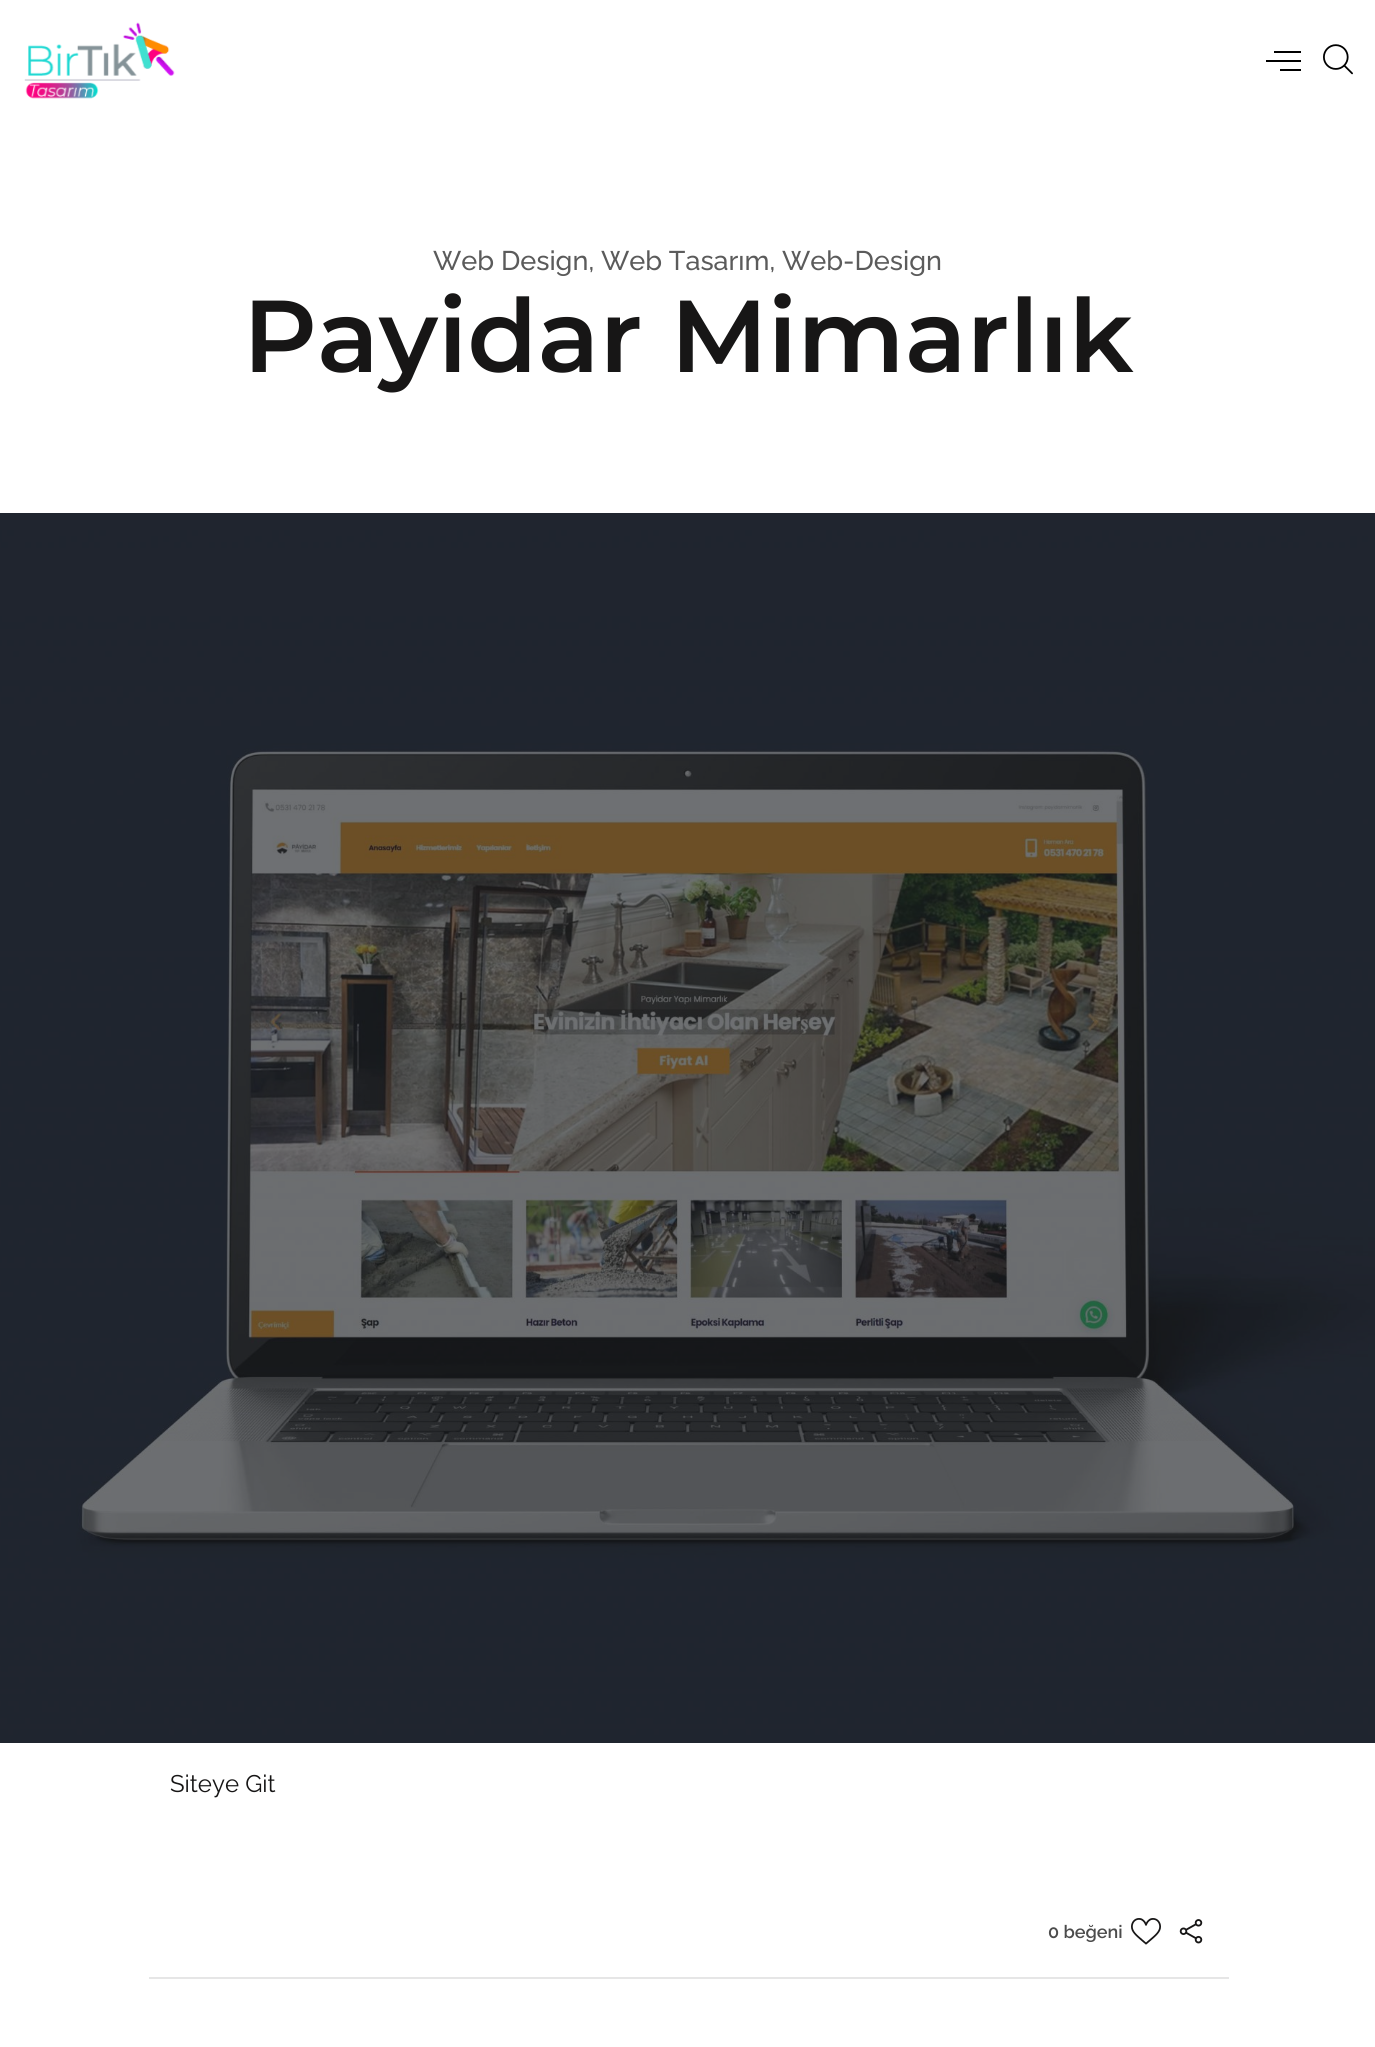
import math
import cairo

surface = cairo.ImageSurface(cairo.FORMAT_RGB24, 1375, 2047)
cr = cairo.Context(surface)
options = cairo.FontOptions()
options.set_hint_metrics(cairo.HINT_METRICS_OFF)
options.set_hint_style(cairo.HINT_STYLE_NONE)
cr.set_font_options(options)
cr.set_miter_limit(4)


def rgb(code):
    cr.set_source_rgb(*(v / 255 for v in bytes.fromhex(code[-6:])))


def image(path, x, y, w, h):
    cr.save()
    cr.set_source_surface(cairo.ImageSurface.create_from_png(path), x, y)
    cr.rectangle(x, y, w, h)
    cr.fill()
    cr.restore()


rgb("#ffffff")
cr.paint()
image("img/1.png", 24, 22, 151, 77)
for x, y, w, h, color in [
    (1274, 51, 27, 2, "#000000"),
    (1266, 60, 35, 2, "#000000"),
    (1280, 69, 21, 2, "#000000"),
]:
    rgb(color)
    cr.rectangle(x, y, w, h)
    cr.fill()
image("img/2.png", 1323, 44, 30, 31)
image("img/3.png", 0, 513, 1375, 1230)
rgb("#e6e6e6")
cr.rectangle(149, 1977, 1080, 2)
cr.fill()
image("img/4.png", 1131, 1918, 30, 27)
image("img/5.png", 1179, 1919, 24, 25)
cr.select_font_face("Raleway Medium")
cr.set_font_size(27)
rgb("#5b5b5b")
cr.move_to(433, 270)
cr.show_text("Web Design, Web Tasarım, Web-Design")
cr.select_font_face("Montserrat SemiBold")
cr.set_font_size(102)
rgb("#171616")
cr.move_to(243, 372)
cr.show_text("Payidar Mimarlık")
cr.select_font_face("Raleway")
cr.set_font_size(24)
cr.move_to(170, 1792)
cr.show_text("Siteye Git")
cr.select_font_face("Raleway SemiBold")
cr.set_font_size(18)
rgb("#4c4c4c")
cr.move_to(1048, 1938)
cr.show_text("0 beğeni")
surface.write_to_png("page.png")
